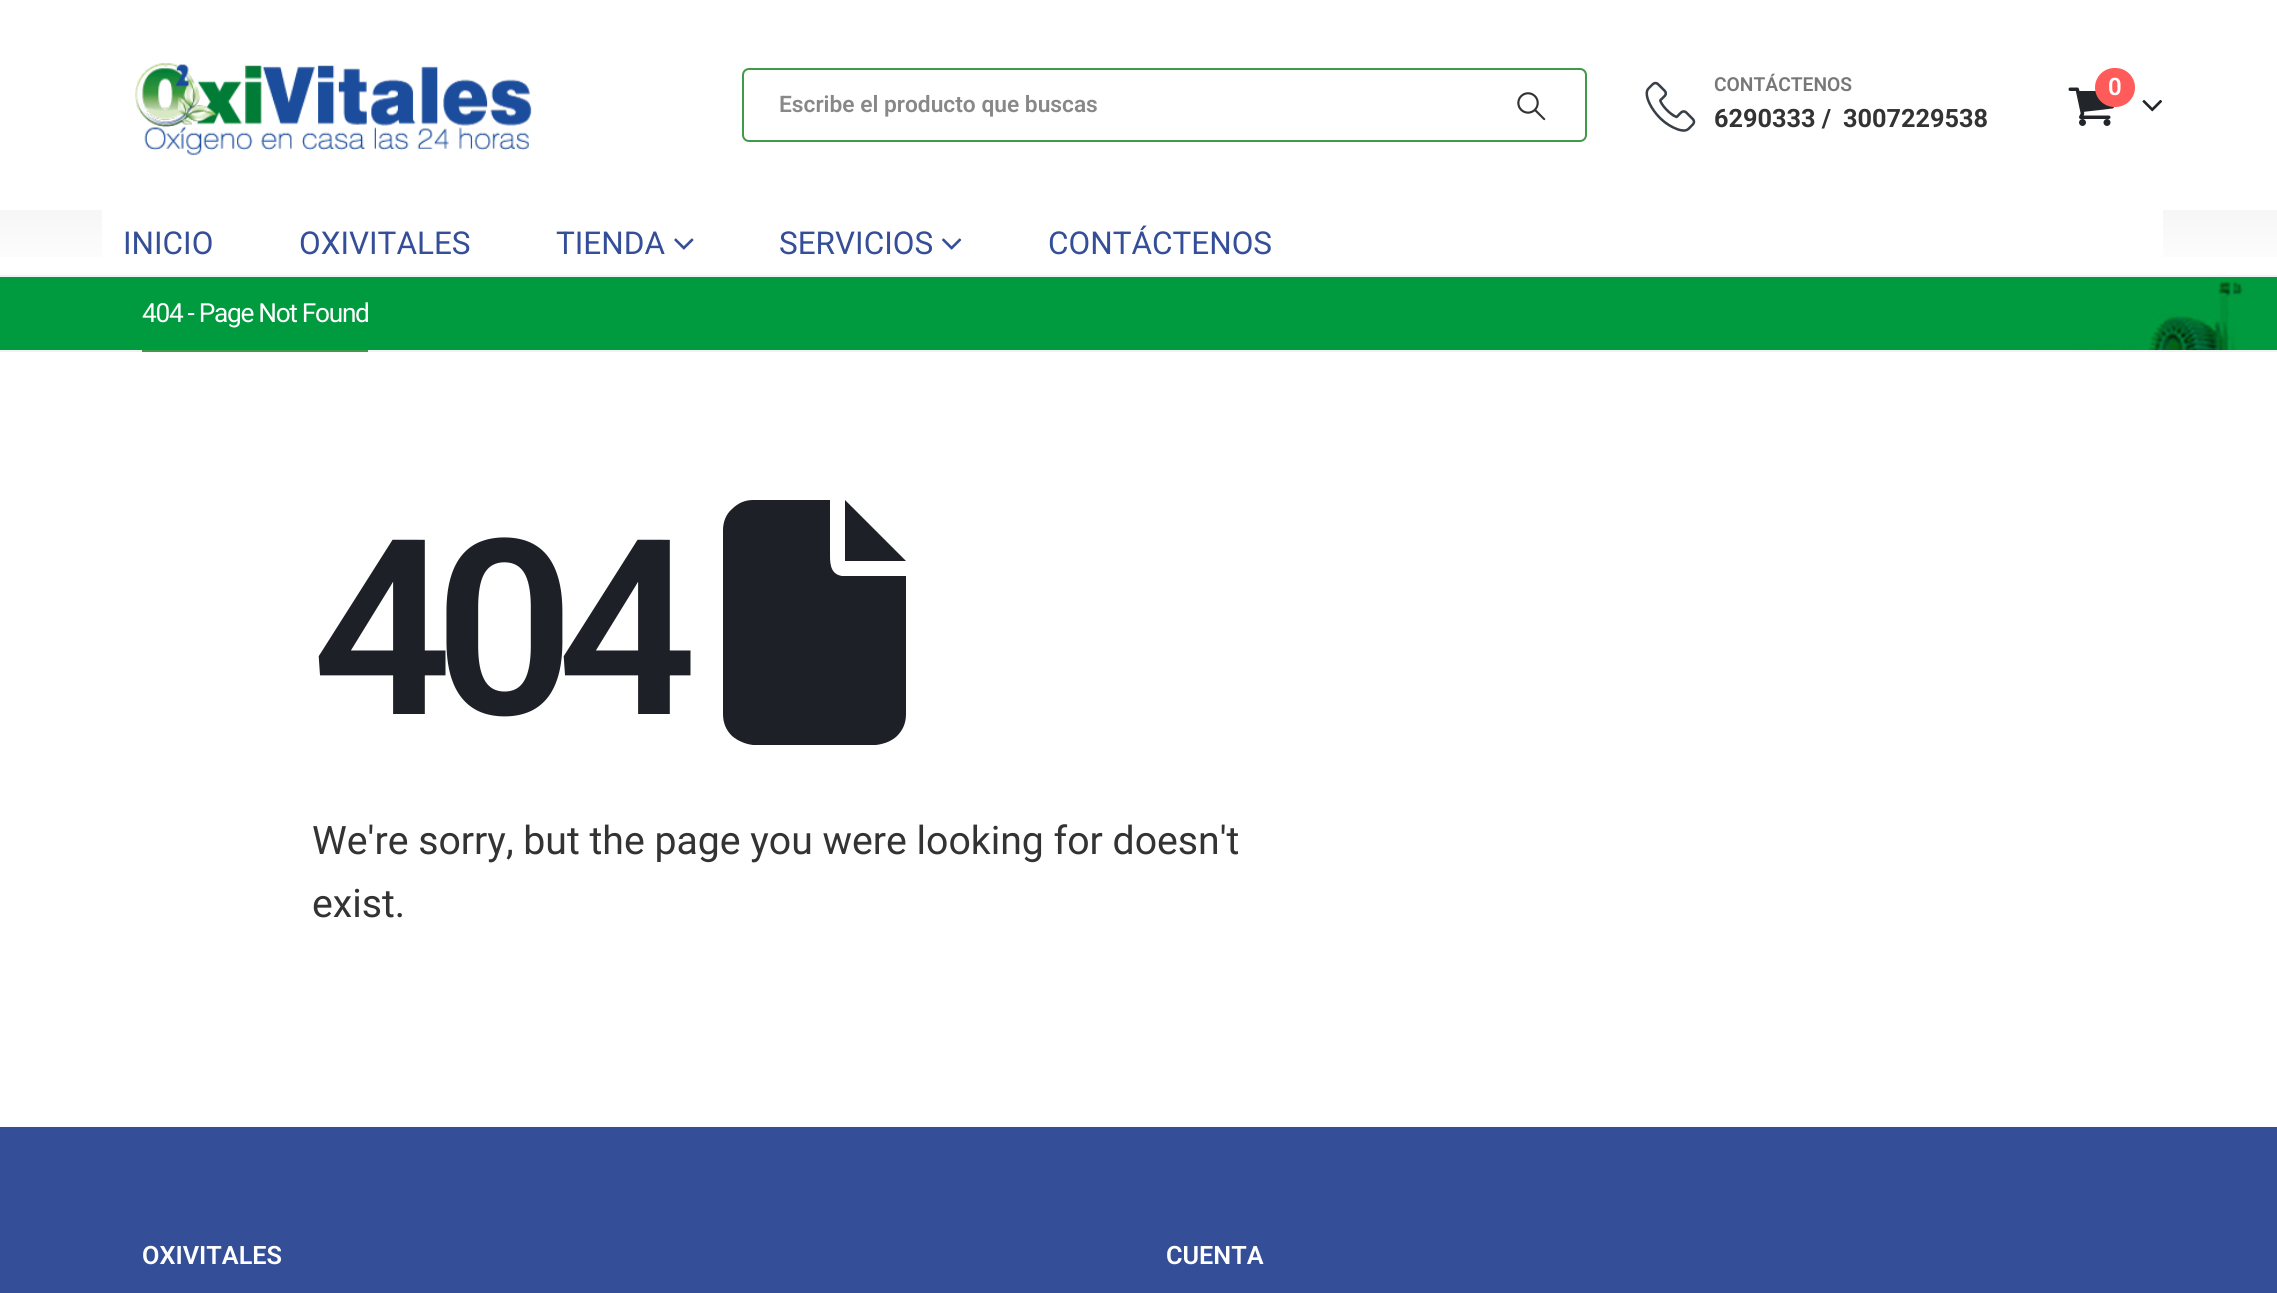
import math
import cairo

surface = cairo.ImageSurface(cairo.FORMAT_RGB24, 2277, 1293)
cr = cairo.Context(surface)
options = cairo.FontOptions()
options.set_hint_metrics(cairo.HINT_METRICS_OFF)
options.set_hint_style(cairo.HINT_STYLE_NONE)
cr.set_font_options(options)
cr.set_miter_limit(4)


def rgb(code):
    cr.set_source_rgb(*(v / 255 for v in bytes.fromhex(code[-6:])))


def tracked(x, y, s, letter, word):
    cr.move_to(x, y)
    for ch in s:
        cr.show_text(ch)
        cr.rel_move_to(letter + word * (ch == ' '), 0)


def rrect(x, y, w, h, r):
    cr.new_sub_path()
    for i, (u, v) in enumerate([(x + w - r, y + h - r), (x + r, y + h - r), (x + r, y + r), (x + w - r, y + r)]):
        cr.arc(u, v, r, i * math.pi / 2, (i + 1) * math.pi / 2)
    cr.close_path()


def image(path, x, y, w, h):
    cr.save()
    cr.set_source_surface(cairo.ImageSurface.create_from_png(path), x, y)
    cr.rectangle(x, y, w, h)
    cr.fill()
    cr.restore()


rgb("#ffffff")
cr.paint()
image("img/1.png", 135, 63, 397, 92)
image("img/2.png", 1645, 81, 51, 51)
image("img/3.png", 2068, 87, 46, 39)
rgb("#ff5b5b")
rrect(2095, 68, 40, 39, 19.5)
cr.fill()
image("img/4.png", 2142, 99, 20, 13)
rrect(743, 69, 843, 72, 6)
rgb("#409a47")
cr.stroke()
image("img/5.png", 1517, 92, 29, 29)
gradient = cairo.LinearGradient(1139, 210, 1139, 275)
gradient.add_color_stop_rgba(0, 0.965, 0.965, 0.965, 1)
gradient.add_color_stop_rgba(1, 1, 1, 1, 1)
cr.set_source(gradient)
cr.rectangle(0, 210, 2277, 47)
cr.fill()
rgb("#ffffff")
cr.rectangle(102, 210, 2061, 47)
cr.fill()
image("img/6.png", 674, 238, 20, 12)
image("img/7.png", 942, 238, 20, 12)
image("img/8.png", 0, 277, 2277, 73)
for x, y, w, h, color in [
    (0, 275, 2277, 2, "#f2f2f2"),
    (0, 350, 2277, 2, "#f2f2f2"),
    (142, 350, 226, 2, "#409a47"),
]:
    rgb(color)
    cr.rectangle(x, y, w, h)
    cr.fill()
rgb("#1d2127")
cr.new_path()
cr.move_to(723, 530)
cr.curve_to(723, 522, 726, 514, 732, 509)
cr.curve_to(738, 503, 745, 500, 753, 500)
cr.line_to(830, 500)
cr.line_to(830, 551)
cr.curve_to(830, 561, 829, 574, 842, 576)
cr.line_to(906, 576)
cr.line_to(906, 714)
cr.curve_to(906, 723, 903, 730, 897, 736)
cr.curve_to(892, 741, 884, 744, 876, 745)
cr.line_to(753, 745)
cr.curve_to(745, 744, 738, 741, 732, 736)
cr.curve_to(726, 730, 723, 723, 723, 714)
cr.close_path()
cr.move_to(906, 561)
cr.line_to(845, 561)
cr.line_to(845, 500)
cr.close_path()
cr.fill()
rgb("#344e98")
cr.rectangle(0, 1127, 2277, 166)
cr.fill()
cr.select_font_face("Roboto SemiBold")
cr.set_font_size(19.25)
rgb("#777777")
cr.move_to(1714, 91)
cr.show_text("CONTÁCTENOS")
cr.select_font_face("Roboto", cairo.FONT_SLANT_NORMAL, cairo.FONT_WEIGHT_BOLD)
cr.set_font_size(25.25)
rgb("#333333")
cr.move_to(1714, 127)
cr.show_text("6290333 /")
cr.move_to(1843, 127)
cr.show_text("3007229538")
cr.select_font_face("Roboto SemiBold")
cr.set_font_size(24)
rgb("#ffffff")
cr.move_to(2108, 95)
cr.show_text("0")
cr.set_font_size(22.75)
rgb("#888888")
cr.move_to(779, 112)
cr.show_text("Escribe el producto que buscas")
cr.select_font_face("Roboto")
cr.set_font_size(31.5)
rgb("#344e98")
for x, y, s in [
    (123, 254, "INICIO"),
    (299, 254, "OXIVITALES"),
    (556, 254, "TIENDA"),
    (779, 254, "SERVICIOS"),
    (1048, 254, "CONTÁCTENOS"),
]:
    cr.move_to(x, y)
    cr.show_text(s)
cr.set_font_size(26.25)
rgb("#ffffff")
tracked(142, 322, "404 - Page Not Found", -1.3, 0)
cr.select_font_face("Roboto SemiBold")
cr.set_font_size(245)
rgb("#1d2127")
tracked(312, 714, "404", -17.5, 0)
cr.select_font_face("Roboto")
cr.set_font_size(39.2)
rgb("#333333")
cr.move_to(312, 854)
cr.show_text("We're sorry, but the page you were looking for doesn't")
cr.move_to(312, 917)
cr.show_text("exist.")
cr.select_font_face("Roboto SemiBold")
cr.set_font_size(25.25)
rgb("#ffffff")
cr.move_to(142, 1264)
cr.show_text("OXIVITALES")
cr.move_to(1166, 1264)
cr.show_text("CUENTA")
surface.write_to_png("page.png")
